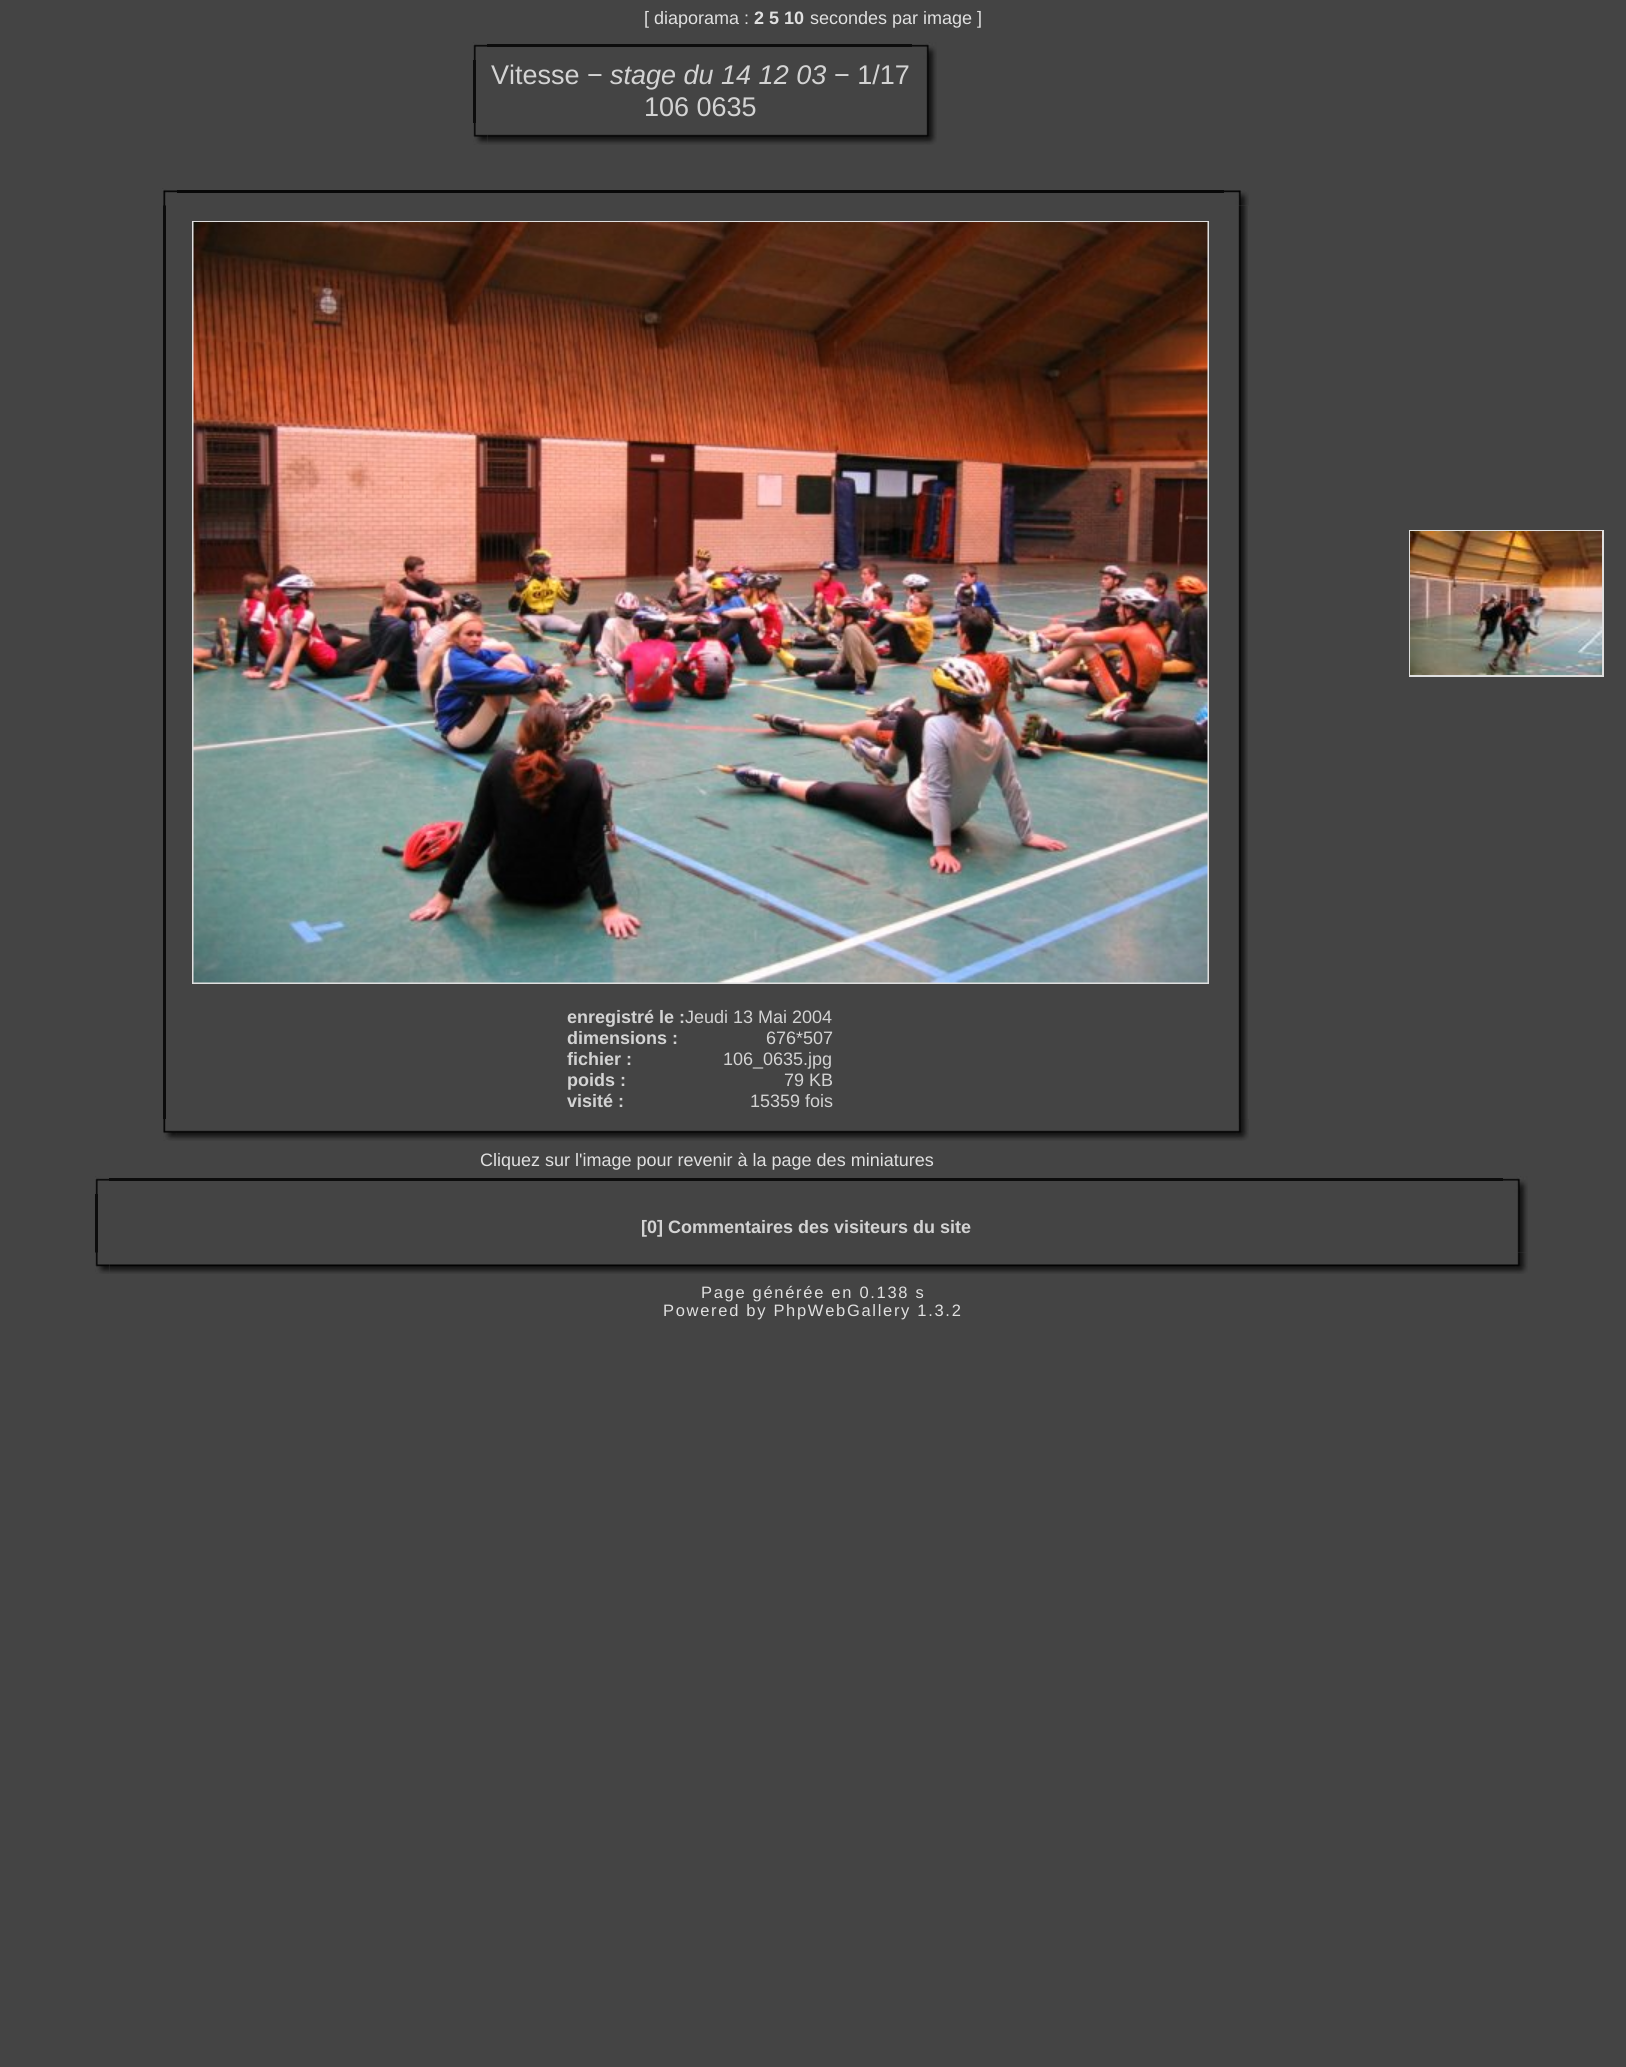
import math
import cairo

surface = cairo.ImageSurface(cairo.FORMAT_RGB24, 1626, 2067)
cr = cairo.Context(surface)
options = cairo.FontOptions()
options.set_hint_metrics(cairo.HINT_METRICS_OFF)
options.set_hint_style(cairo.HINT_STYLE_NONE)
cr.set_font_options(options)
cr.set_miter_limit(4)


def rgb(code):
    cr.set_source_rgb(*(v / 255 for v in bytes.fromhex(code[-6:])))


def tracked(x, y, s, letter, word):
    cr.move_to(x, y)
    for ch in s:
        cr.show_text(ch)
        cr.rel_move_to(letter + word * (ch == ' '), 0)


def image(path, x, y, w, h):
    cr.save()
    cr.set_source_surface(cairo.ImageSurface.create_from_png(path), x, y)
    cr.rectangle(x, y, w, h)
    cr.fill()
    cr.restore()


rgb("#444444")
cr.paint()
image("img/1.png", 473, 42, 15, 18)
rgb("#0c0c0c")
cr.rectangle(487, 44, 425, 3)
cr.fill()
image("img/2.png", 912, 42, 25, 18)
cr.rectangle(473, 60, 3, 63)
cr.fill()
image("img/3.png", 926, 60, 11, 63)
image("img/4.png", 473, 123, 15, 22)
image("img/5.png", 487, 134, 425, 11)
image("img/6.png", 912, 123, 25, 22)
rgb("#0b0b0b")
cr.rectangle(163, 205, 3, 914)
cr.fill()
image("img/7.png", 162, 188, 15, 18)
rgb("#080808")
cr.rectangle(177, 190, 1047, 3)
cr.fill()
image("img/10.png", 1238, 205, 10, 914)
image("img/8.png", 1224, 190, 25, 16)
cr.rectangle(193, 222, 1015, 761)
rgb("#e0e0e0")
cr.stroke()
image("img/9.png", 193, 222, 1015, 761)
image("img/11.png", 163, 1119, 14, 22)
image("img/12.png", 177, 1130, 1047, 11)
image("img/13.png", 1224, 1119, 25, 22)
cr.rectangle(1410, 531, 193, 145)
cr.stroke()
image("img/14.png", 1410, 531, 192, 144)
image("img/1.png", 95, 1176, 15, 18)
rgb("#0c0c0c")
cr.rectangle(109, 1178, 1394, 3)
cr.fill()
image("img/15.png", 1503, 1176, 25, 18)
cr.rectangle(95, 1194, 3, 59)
cr.fill()
image("img/16.png", 1517, 1194, 11, 59)
image("img/17.png", 95, 1252, 15, 22)
image("img/18.png", 109, 1264, 1394, 10)
image("img/19.png", 1503, 1252, 25, 22)
cr.select_font_face("Liberation Sans")
cr.set_font_size(18)
rgb("#e0e0e0")
cr.move_to(644, 24)
cr.show_text("[ diaporama :")
cr.select_font_face("Liberation Sans", cairo.FONT_SLANT_NORMAL, cairo.FONT_WEIGHT_BOLD)
cr.move_to(754, 24)
cr.show_text("2 5 10")
cr.select_font_face("Liberation Sans")
cr.move_to(810, 24)
cr.show_text("secondes par image ]")
cr.set_font_size(27)
rgb("#d3d3d3")
cr.move_to(491, 84)
cr.show_text("Vitesse −")
cr.select_font_face("Liberation Sans", cairo.FONT_SLANT_ITALIC)
cr.move_to(610, 84)
cr.show_text("stage du 14 12 03")
cr.select_font_face("Liberation Sans")
cr.move_to(834, 84)
cr.show_text("− 1/17")
cr.move_to(644, 116)
cr.show_text("106 0635")
cr.select_font_face("Liberation Sans", cairo.FONT_SLANT_NORMAL, cairo.FONT_WEIGHT_BOLD)
cr.set_font_size(18)
cr.move_to(567, 1023)
cr.show_text("enregistré le :")
cr.select_font_face("Liberation Sans")
cr.move_to(685, 1023)
cr.show_text("Jeudi 13 Mai 2004")
cr.select_font_face("Liberation Sans", cairo.FONT_SLANT_NORMAL, cairo.FONT_WEIGHT_BOLD)
cr.move_to(567, 1044)
cr.show_text("dimensions :")
cr.select_font_face("Liberation Sans")
cr.move_to(766, 1044)
cr.show_text("676*507")
cr.select_font_face("Liberation Sans", cairo.FONT_SLANT_NORMAL, cairo.FONT_WEIGHT_BOLD)
cr.move_to(567, 1065)
cr.show_text("fichier :")
cr.select_font_face("Liberation Sans")
cr.move_to(723, 1065)
cr.show_text("106_0635.jpg")
cr.select_font_face("Liberation Sans", cairo.FONT_SLANT_NORMAL, cairo.FONT_WEIGHT_BOLD)
cr.move_to(567, 1086)
cr.show_text("poids :")
cr.select_font_face("Liberation Sans")
cr.move_to(784, 1086)
cr.show_text("79 KB")
cr.select_font_face("Liberation Sans", cairo.FONT_SLANT_NORMAL, cairo.FONT_WEIGHT_BOLD)
cr.move_to(567, 1107)
cr.show_text("visité :")
cr.select_font_face("Liberation Sans")
cr.move_to(750, 1107)
cr.show_text("15359 fois")
rgb("#e0e0e0")
cr.move_to(480, 1166)
cr.show_text("Cliquez sur l'image pour revenir à la page des miniatures")
cr.select_font_face("Liberation Sans", cairo.FONT_SLANT_NORMAL, cairo.FONT_WEIGHT_BOLD)
rgb("#d3d3d3")
cr.move_to(641, 1233)
cr.show_text("[0] Commentaires des visiteurs du site")
cr.select_font_face("Liberation Sans")
cr.set_font_size(16.5)
rgb("#e0e0e0")
tracked(701, 1298, "Page générée en 0.138 s", 1.7, 0)
tracked(663, 1316, "Powered by PhpWebGallery 1.3.2", 1.7, 0)
surface.write_to_png("page.png")
